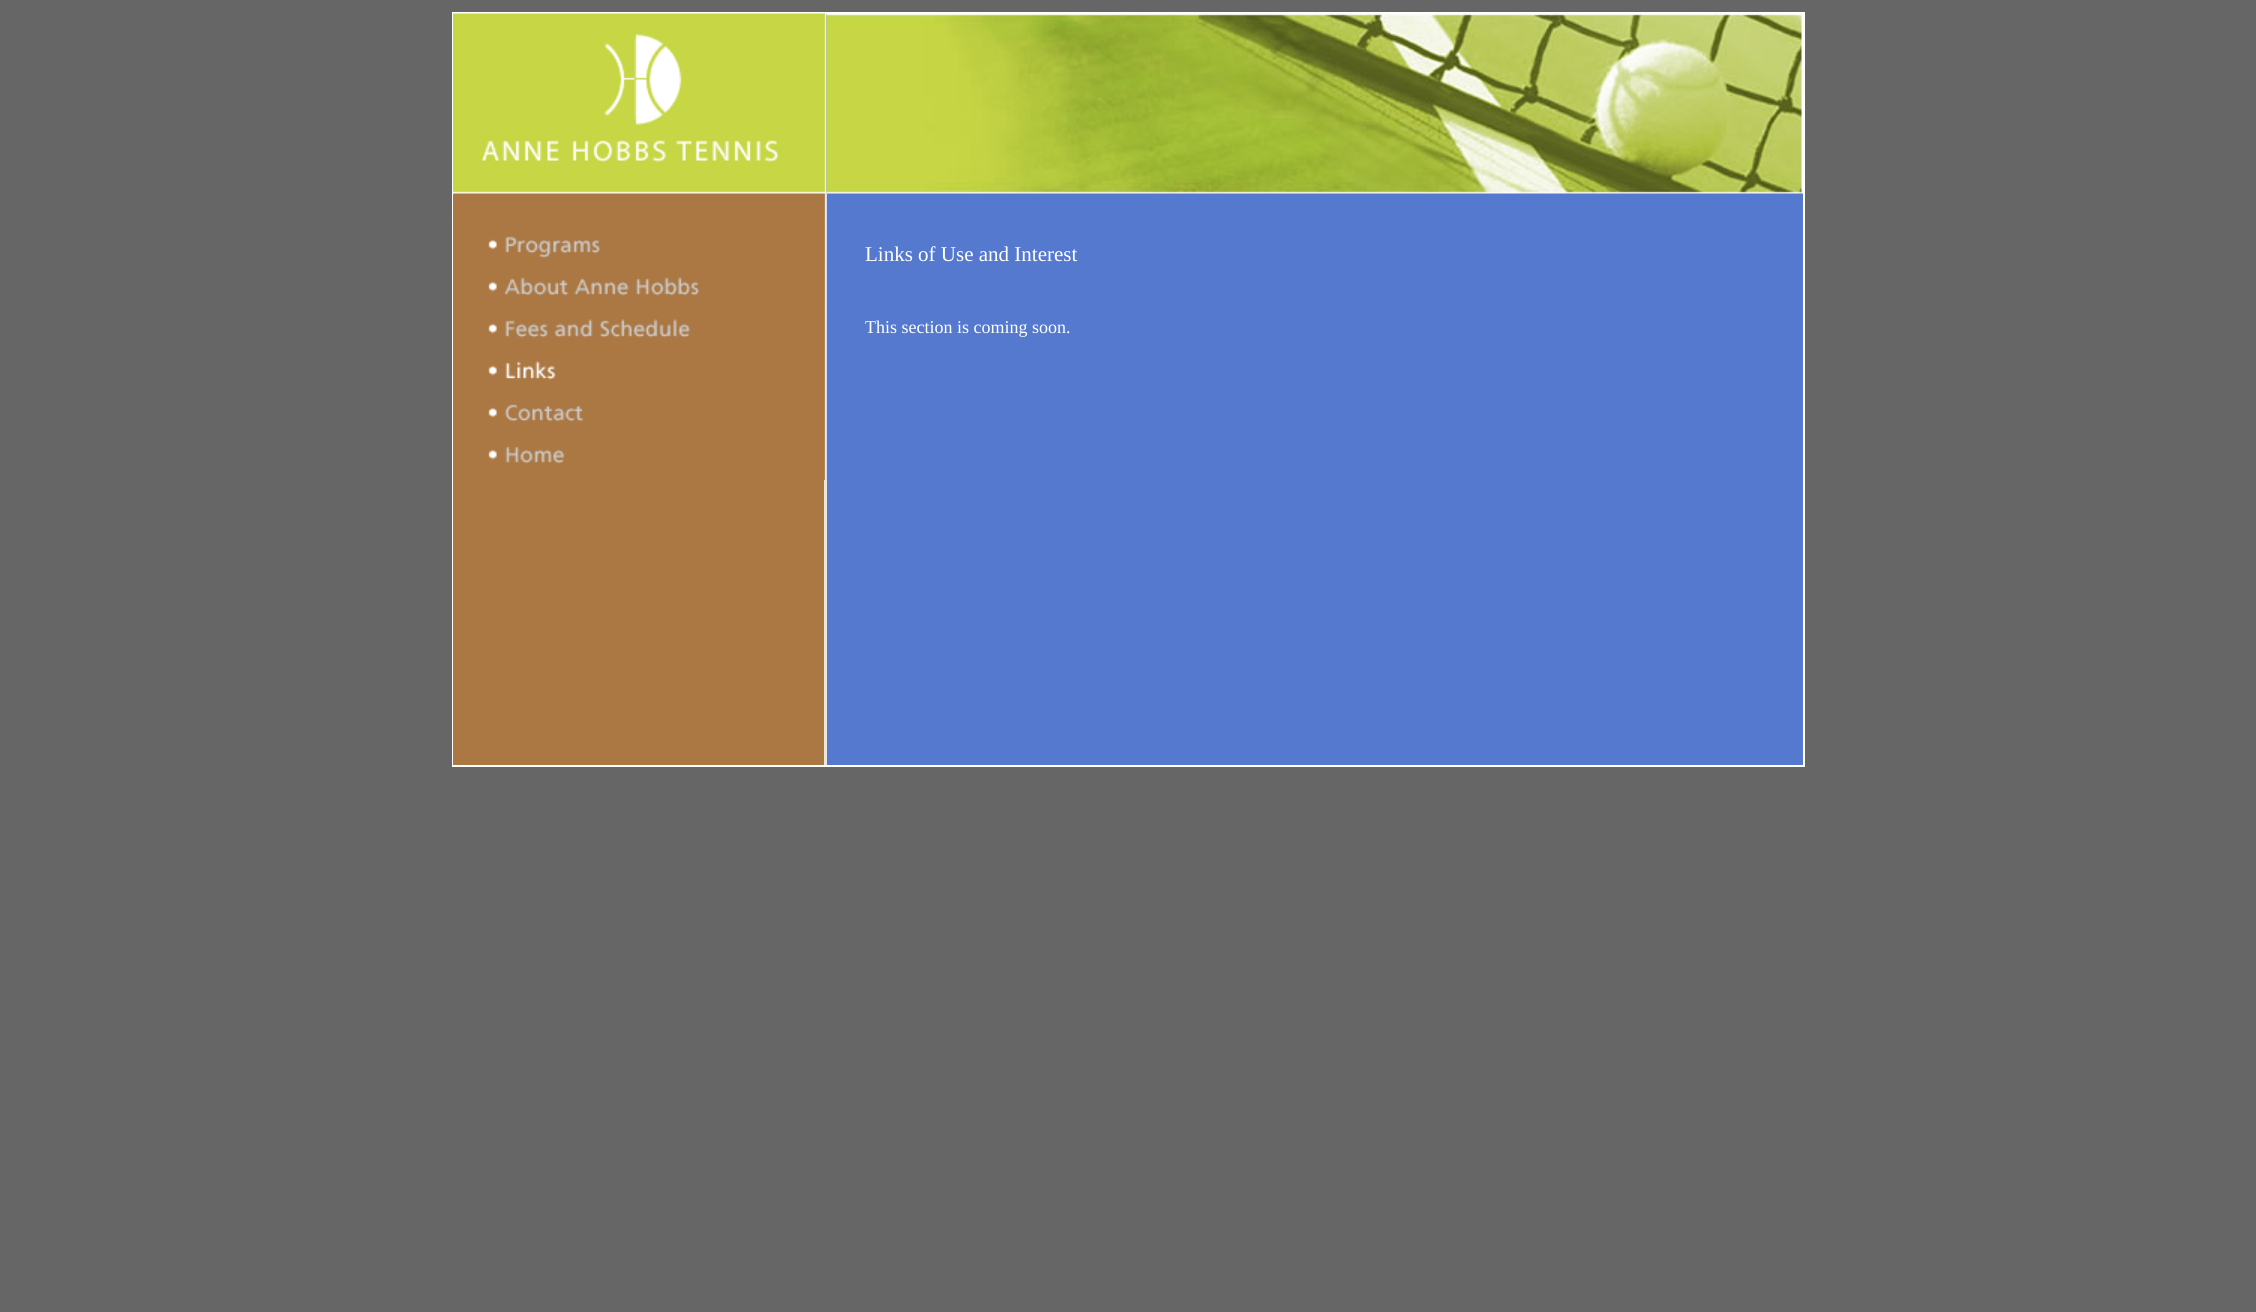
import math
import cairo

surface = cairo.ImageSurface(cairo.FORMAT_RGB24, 2256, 1312)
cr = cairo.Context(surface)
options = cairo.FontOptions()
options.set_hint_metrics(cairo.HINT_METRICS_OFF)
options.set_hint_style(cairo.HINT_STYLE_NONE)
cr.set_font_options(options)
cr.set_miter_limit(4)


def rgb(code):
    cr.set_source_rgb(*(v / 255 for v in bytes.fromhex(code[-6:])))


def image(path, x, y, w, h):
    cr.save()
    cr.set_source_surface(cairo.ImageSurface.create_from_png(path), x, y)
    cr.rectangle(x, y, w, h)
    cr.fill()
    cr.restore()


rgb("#666666")
cr.paint()
rgb("#5579cf")
cr.rectangle(453, 13, 1351, 753)
cr.fill_preserve()
rgb("#ffffff")
cr.stroke()
image("img/3.png", 453, 193, 374, 572)
image("img/4.png", 453, 193, 374, 25)
image("img/1.png", 453, 13, 374, 181)
image("img/2.png", 826, 13, 977, 181)
image("img/5.png", 488, 217, 339, 49)
image("img/6.png", 488, 265, 339, 46)
image("img/7.png", 488, 310, 339, 43)
image("img/8.png", 488, 352, 339, 43)
image("img/9.png", 488, 394, 339, 43)
image("img/10.png", 488, 436, 339, 44)
rgb("#efe5db")
cr.rectangle(824, 480, 3, 285)
cr.fill()
cr.select_font_face("Liberation Serif")
cr.set_font_size(21)
rgb("#ffffff")
cr.move_to(865, 261)
cr.show_text("Links of Use and Interest")
cr.set_font_size(18)
cr.move_to(865, 333)
cr.show_text("This section is coming soon.")
surface.write_to_png("page.png")
